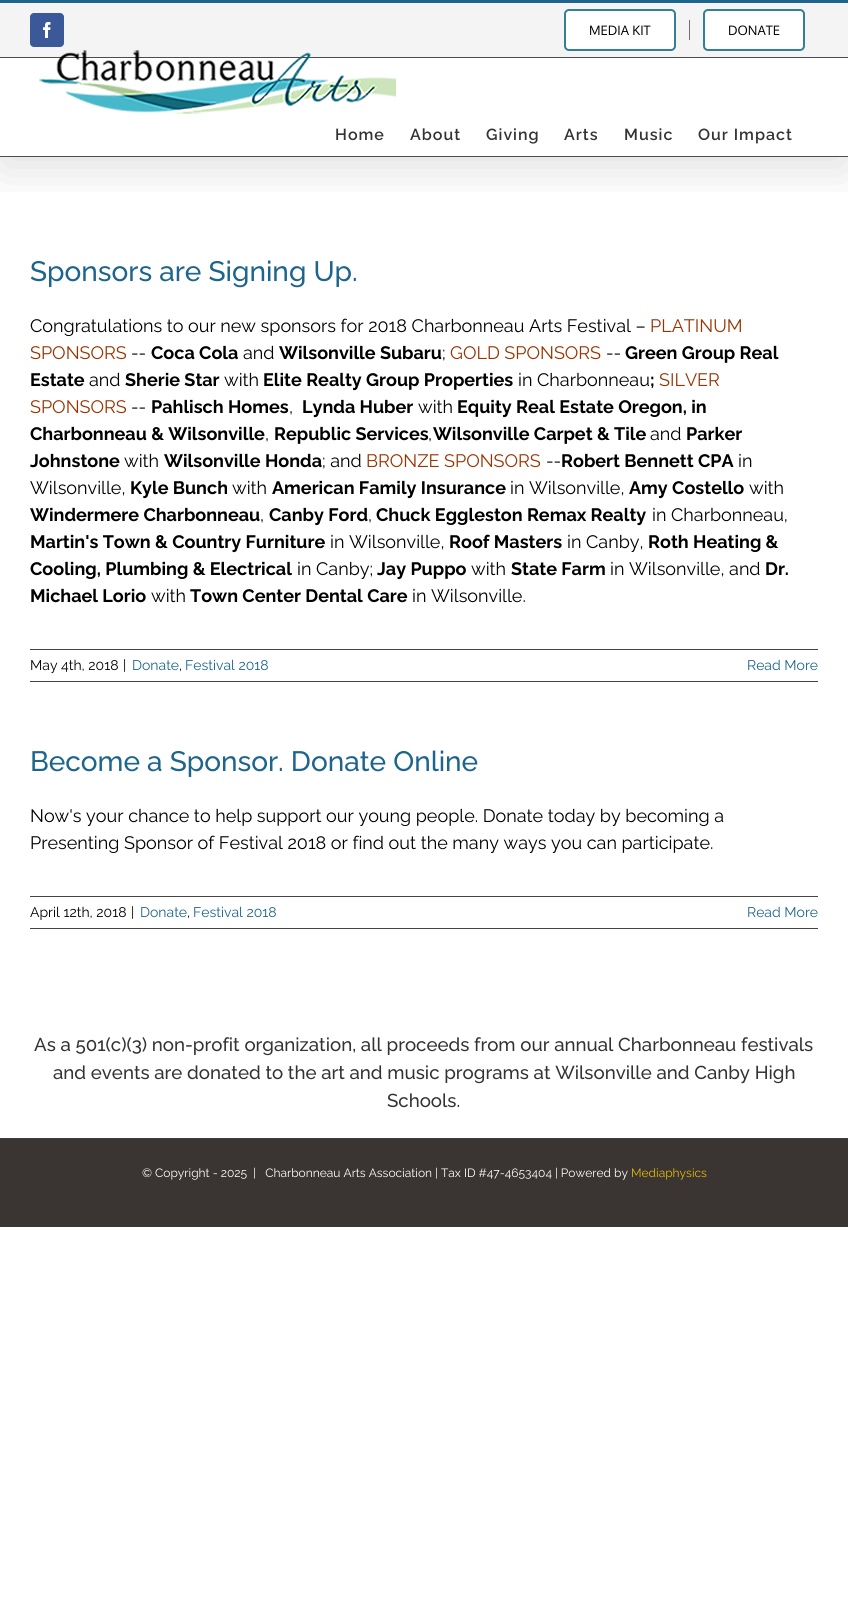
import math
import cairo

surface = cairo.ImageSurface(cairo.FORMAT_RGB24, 848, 1611)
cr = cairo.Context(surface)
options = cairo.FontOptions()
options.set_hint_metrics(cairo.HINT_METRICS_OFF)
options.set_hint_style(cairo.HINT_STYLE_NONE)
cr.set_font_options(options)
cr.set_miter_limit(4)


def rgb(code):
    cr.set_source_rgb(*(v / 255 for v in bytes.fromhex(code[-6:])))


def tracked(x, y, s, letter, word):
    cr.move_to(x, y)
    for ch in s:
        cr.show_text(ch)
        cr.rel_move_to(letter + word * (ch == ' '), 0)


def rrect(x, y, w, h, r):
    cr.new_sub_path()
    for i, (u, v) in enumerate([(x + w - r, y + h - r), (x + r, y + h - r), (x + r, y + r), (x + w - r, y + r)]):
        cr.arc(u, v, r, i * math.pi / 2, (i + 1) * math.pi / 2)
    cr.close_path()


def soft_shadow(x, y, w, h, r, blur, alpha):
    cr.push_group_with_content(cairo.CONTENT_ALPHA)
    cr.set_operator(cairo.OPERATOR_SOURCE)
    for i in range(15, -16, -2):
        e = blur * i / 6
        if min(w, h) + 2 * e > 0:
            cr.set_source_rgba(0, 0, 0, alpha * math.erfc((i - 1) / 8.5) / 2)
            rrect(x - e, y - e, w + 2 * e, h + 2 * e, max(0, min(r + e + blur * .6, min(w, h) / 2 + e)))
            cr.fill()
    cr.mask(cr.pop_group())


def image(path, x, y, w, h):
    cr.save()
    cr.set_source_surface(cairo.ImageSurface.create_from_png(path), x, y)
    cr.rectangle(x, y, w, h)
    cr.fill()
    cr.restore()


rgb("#ffffff")
cr.paint()
cr.save()
cr.rectangle(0, 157, 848, 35)
cr.clip()
rgb("#000000")
soft_shadow(2, 12, 844, 153, 0, 25, 0.14)
cr.restore()
for x, y, w, h, color in [
    (0, 3, 848, 54, "#f4f4f4"),
    (0, 0, 848, 3, "#1d658c"),
    (0, 57, 848, 1, "#4c4c4c"),
]:
    rgb(color)
    cr.rectangle(x, y, w, h)
    cr.fill()
rgb("#3b5998")
rrect(30.5, 13.5, 33, 33, 3.5)
cr.fill_preserve()
cr.set_line_width(1)
cr.stroke()
image("img/1.png", 43, 22, 8, 16)
rgb("#ffffff")
rrect(565, 10, 110, 40, 4)
cr.fill_preserve()
rgb("#347f96")
cr.set_line_width(2)
cr.stroke()
rgb("#707070")
cr.rectangle(689, 20, 1, 20)
cr.fill()
rgb("#ffffff")
rrect(704, 10, 100, 40, 4)
cr.fill_preserve()
rgb("#347f96")
cr.stroke()
rgb("#4c4c4c")
cr.rectangle(0, 156, 848, 1)
cr.fill()
image("img/2.png", 39, 50, 357, 64)
for x, y, w, h, color in [
    (30, 649, 788, 1, "#474544"),
    (30, 681, 788, 1, "#474544"),
    (30, 896, 788, 1, "#474544"),
    (30, 928, 788, 1, "#474544"),
    (0, 1139, 848, 88, "#3a3433"),
    (0, 1138, 848, 1, "#404042"),
]:
    rgb(color)
    cr.rectangle(x, y, w, h)
    cr.fill()
cr.select_font_face("Oxygen")
cr.set_font_size(13)
rgb("#000000")
cr.move_to(589, 35)
cr.show_text("MEDIA KIT")
cr.move_to(728, 35)
cr.show_text("DONATE")
cr.select_font_face("Raleway SemiBold")
cr.set_font_size(16)
rgb("#333333")
for x, y, s in [
    (335, 140, "Home"),
    (410, 140, "About"),
    (486, 140, "Giving"),
    (564, 140, "Arts"),
    (624, 140, "Music"),
    (698, 140, "Our Impact"),
]:
    tracked(x, y, s, 1, 0)
cr.select_font_face("Raleway Medium")
cr.set_font_size(28)
rgb("#1d658c")
cr.move_to(30, 281)
cr.show_text("Sponsors are Signing Up.")
cr.select_font_face("Raleway")
cr.set_font_size(18)
rgb("#000000")
cr.move_to(30, 332)
cr.show_text("Congratulations to our new sponsors for 2018 Charbonneau Arts Festival –")
rgb("#993300")
cr.move_to(650, 332)
cr.show_text("PLATINUM")
cr.move_to(30, 359)
cr.show_text("SPONSORS")
rgb("#000000")
cr.move_to(131, 359)
cr.show_text("--")
cr.select_font_face("Raleway", cairo.FONT_SLANT_NORMAL, cairo.FONT_WEIGHT_BOLD)
cr.move_to(151, 359)
cr.show_text("Coca Cola")
cr.select_font_face("Raleway")
cr.move_to(243, 359)
cr.show_text("and")
cr.select_font_face("Raleway", cairo.FONT_SLANT_NORMAL, cairo.FONT_WEIGHT_BOLD)
cr.move_to(279, 359)
cr.show_text("Wilsonville Subaru")
cr.select_font_face("Raleway")
cr.move_to(442, 359)
cr.show_text(";")
rgb("#993300")
cr.move_to(450, 359)
cr.show_text("GOLD SPONSORS")
rgb("#000000")
cr.move_to(606, 359)
cr.show_text("--")
cr.select_font_face("Raleway", cairo.FONT_SLANT_NORMAL, cairo.FONT_WEIGHT_BOLD)
cr.move_to(625, 359)
cr.show_text("Green Group Real")
cr.move_to(30, 386)
cr.show_text("Estate")
cr.select_font_face("Raleway")
cr.move_to(89, 386)
cr.show_text("and")
cr.select_font_face("Raleway", cairo.FONT_SLANT_NORMAL, cairo.FONT_WEIGHT_BOLD)
cr.move_to(125, 386)
cr.show_text("Sherie Star")
cr.select_font_face("Raleway")
cr.move_to(224, 386)
cr.show_text("with")
cr.select_font_face("Raleway", cairo.FONT_SLANT_NORMAL, cairo.FONT_WEIGHT_BOLD)
cr.move_to(263, 386)
cr.show_text("Elite Realty Group Properties")
cr.select_font_face("Raleway")
cr.move_to(518, 386)
cr.show_text("in Charbonneau")
cr.select_font_face("Raleway", cairo.FONT_SLANT_NORMAL, cairo.FONT_WEIGHT_BOLD)
cr.move_to(650, 386)
cr.show_text(";")
cr.select_font_face("Raleway")
rgb("#993300")
cr.move_to(659, 386)
cr.show_text("SILVER")
cr.move_to(30, 413)
cr.show_text("SPONSORS")
rgb("#000000")
cr.move_to(131, 413)
cr.show_text("--")
cr.select_font_face("Raleway", cairo.FONT_SLANT_NORMAL, cairo.FONT_WEIGHT_BOLD)
cr.move_to(151, 413)
cr.show_text("Pahlisch Homes")
cr.move_to(302, 413)
cr.show_text("Lynda Huber")
cr.select_font_face("Raleway")
cr.move_to(418, 413)
cr.show_text("with")
cr.select_font_face("Raleway", cairo.FONT_SLANT_NORMAL, cairo.FONT_WEIGHT_BOLD)
cr.move_to(457, 413)
cr.show_text("Equity Real Estate Oregon, in")
cr.select_font_face("Raleway")
cr.move_to(289, 413)
cr.show_text(",")
cr.select_font_face("Raleway", cairo.FONT_SLANT_NORMAL, cairo.FONT_WEIGHT_BOLD)
cr.move_to(30, 440)
cr.show_text("Charbonneau & Wilsonville")
cr.select_font_face("Raleway")
cr.move_to(265, 440)
cr.show_text(",")
cr.select_font_face("Raleway", cairo.FONT_SLANT_NORMAL, cairo.FONT_WEIGHT_BOLD)
cr.move_to(274, 440)
cr.show_text("Republic Services Wilsonville Carpet & Tile")
cr.select_font_face("Raleway")
cr.move_to(650, 440)
cr.show_text("and")
cr.select_font_face("Raleway", cairo.FONT_SLANT_NORMAL, cairo.FONT_WEIGHT_BOLD)
cr.move_to(686, 440)
cr.show_text("Parker")
cr.select_font_face("Raleway")
cr.move_to(428, 440)
cr.show_text(",")
cr.select_font_face("Raleway", cairo.FONT_SLANT_NORMAL, cairo.FONT_WEIGHT_BOLD)
cr.move_to(30, 467)
cr.show_text("Johnstone")
cr.select_font_face("Raleway")
cr.move_to(124, 467)
cr.show_text("with")
cr.select_font_face("Raleway", cairo.FONT_SLANT_NORMAL, cairo.FONT_WEIGHT_BOLD)
cr.move_to(164, 467)
cr.show_text("Wilsonville Honda")
cr.select_font_face("Raleway")
cr.move_to(322, 467)
cr.show_text("; and")
rgb("#993300")
cr.move_to(366, 467)
cr.show_text("BRONZE SPONSORS")
rgb("#000000")
cr.move_to(546, 467)
cr.show_text("--")
cr.select_font_face("Raleway", cairo.FONT_SLANT_NORMAL, cairo.FONT_WEIGHT_BOLD)
cr.move_to(561, 467)
cr.show_text("Robert Bennett CPA")
cr.select_font_face("Raleway")
cr.move_to(738, 467)
cr.show_text("in")
cr.move_to(30, 494)
cr.show_text("Wilsonville,")
cr.select_font_face("Raleway", cairo.FONT_SLANT_NORMAL, cairo.FONT_WEIGHT_BOLD)
cr.move_to(130, 494)
cr.show_text("Kyle Bunch")
cr.select_font_face("Raleway")
cr.move_to(232, 494)
cr.show_text("with")
cr.select_font_face("Raleway", cairo.FONT_SLANT_NORMAL, cairo.FONT_WEIGHT_BOLD)
cr.move_to(272, 494)
cr.show_text("American Family Insurance")
cr.select_font_face("Raleway")
cr.move_to(510, 494)
cr.show_text("in Wilsonville,")
cr.select_font_face("Raleway", cairo.FONT_SLANT_NORMAL, cairo.FONT_WEIGHT_BOLD)
cr.move_to(629, 494)
cr.show_text("Amy Costello")
cr.select_font_face("Raleway")
cr.move_to(749, 494)
cr.show_text("with")
cr.select_font_face("Raleway", cairo.FONT_SLANT_NORMAL, cairo.FONT_WEIGHT_BOLD)
cr.move_to(30, 521)
cr.show_text("Windermere Charbonneau")
cr.select_font_face("Raleway")
cr.move_to(260, 521)
cr.show_text(",")
cr.select_font_face("Raleway", cairo.FONT_SLANT_NORMAL, cairo.FONT_WEIGHT_BOLD)
cr.move_to(269, 521)
cr.show_text("Canby Ford")
cr.select_font_face("Raleway")
cr.move_to(368, 521)
cr.show_text(",")
cr.select_font_face("Raleway", cairo.FONT_SLANT_NORMAL, cairo.FONT_WEIGHT_BOLD)
cr.move_to(376, 521)
cr.show_text("Chuck Eggleston Remax Realty")
cr.select_font_face("Raleway")
cr.move_to(652, 521)
cr.show_text("in Charbonneau,")
cr.select_font_face("Raleway", cairo.FONT_SLANT_NORMAL, cairo.FONT_WEIGHT_BOLD)
cr.move_to(30, 548)
cr.show_text("Martin's Town & Country Furniture")
cr.select_font_face("Raleway")
cr.move_to(330, 548)
cr.show_text("in Wilsonville,")
cr.select_font_face("Raleway", cairo.FONT_SLANT_NORMAL, cairo.FONT_WEIGHT_BOLD)
cr.move_to(449, 548)
cr.show_text("Roof Masters")
cr.select_font_face("Raleway")
cr.move_to(567, 548)
cr.show_text("in Canby,")
cr.select_font_face("Raleway", cairo.FONT_SLANT_NORMAL, cairo.FONT_WEIGHT_BOLD)
cr.move_to(648, 548)
cr.show_text("Roth Heating &")
cr.move_to(30, 575)
cr.show_text("Cooling, Plumbing & Electrical")
cr.select_font_face("Raleway")
cr.move_to(297, 575)
cr.show_text("in Canby;")
cr.select_font_face("Raleway", cairo.FONT_SLANT_NORMAL, cairo.FONT_WEIGHT_BOLD)
cr.move_to(377, 575)
cr.show_text("Jay Puppo")
cr.select_font_face("Raleway")
cr.move_to(471, 575)
cr.show_text("with")
cr.select_font_face("Raleway", cairo.FONT_SLANT_NORMAL, cairo.FONT_WEIGHT_BOLD)
cr.move_to(511, 575)
cr.show_text("State Farm")
cr.select_font_face("Raleway")
cr.move_to(610, 575)
cr.show_text("in Wilsonville, and")
cr.select_font_face("Raleway", cairo.FONT_SLANT_NORMAL, cairo.FONT_WEIGHT_BOLD)
cr.move_to(765, 575)
cr.show_text("Dr.")
cr.move_to(30, 602)
cr.show_text("Michael Lorio")
cr.select_font_face("Raleway")
cr.move_to(151, 602)
cr.show_text("with")
cr.select_font_face("Raleway", cairo.FONT_SLANT_NORMAL, cairo.FONT_WEIGHT_BOLD)
cr.move_to(190, 602)
cr.show_text("Town Center Dental Care")
cr.select_font_face("Raleway")
cr.move_to(412, 602)
cr.show_text("in Wilsonville.")
cr.set_font_size(14)
cr.move_to(30, 670)
cr.show_text("May 4th, 2018")
cr.move_to(123, 670)
cr.show_text("|")
rgb("#1d658c")
cr.move_to(132, 670)
cr.show_text("Donate")
rgb("#000000")
cr.move_to(179, 670)
cr.show_text(",")
rgb("#1d658c")
cr.move_to(185, 670)
cr.show_text("Festival 2018")
cr.move_to(747, 670)
cr.show_text("Read More")
cr.select_font_face("Raleway Medium")
cr.set_font_size(28)
cr.move_to(30, 771)
cr.show_text("Become a Sponsor. Donate Online")
cr.select_font_face("Raleway")
cr.set_font_size(18)
rgb("#000000")
cr.move_to(30, 822)
cr.show_text("Now's your chance to help support our young people. Donate today by becoming a")
cr.move_to(30, 849)
cr.show_text("Presenting Sponsor of Festival 2018 or find out the many ways you can participate.")
cr.set_font_size(14)
cr.move_to(30, 917)
cr.show_text("April 12th, 2018")
cr.move_to(131, 917)
cr.show_text("|")
rgb("#1d658c")
cr.move_to(140, 917)
cr.show_text("Donate")
rgb("#000000")
cr.move_to(187, 917)
cr.show_text(",")
rgb("#1d658c")
cr.move_to(193, 917)
cr.show_text("Festival 2018")
cr.move_to(747, 917)
cr.show_text("Read More")
cr.select_font_face("Raleway Medium")
cr.set_font_size(18.65)
rgb("#333333")
for x, y, s in [
    (34, 1051, "As a 501(c)(3) non-profit organization, all proceeds from our annual Charbonneau festivals"),
    (53, 1079, "and events are donated to the art and music programs at Wilsonville and Canby High"),
    (387, 1107, "Schools."),
]:
    cr.move_to(x, y)
    cr.show_text(s)
cr.select_font_face("Raleway")
cr.set_font_size(12)
rgb("#ffffff")
cr.move_to(142, 1177)
cr.show_text("© Copyright - 2025  |   Charbonneau Arts Association | Tax ID #47-4653404 | Powered by")
rgb("#e2b902")
cr.move_to(631, 1177)
cr.show_text("Mediaphysics")
surface.write_to_png("page.png")
